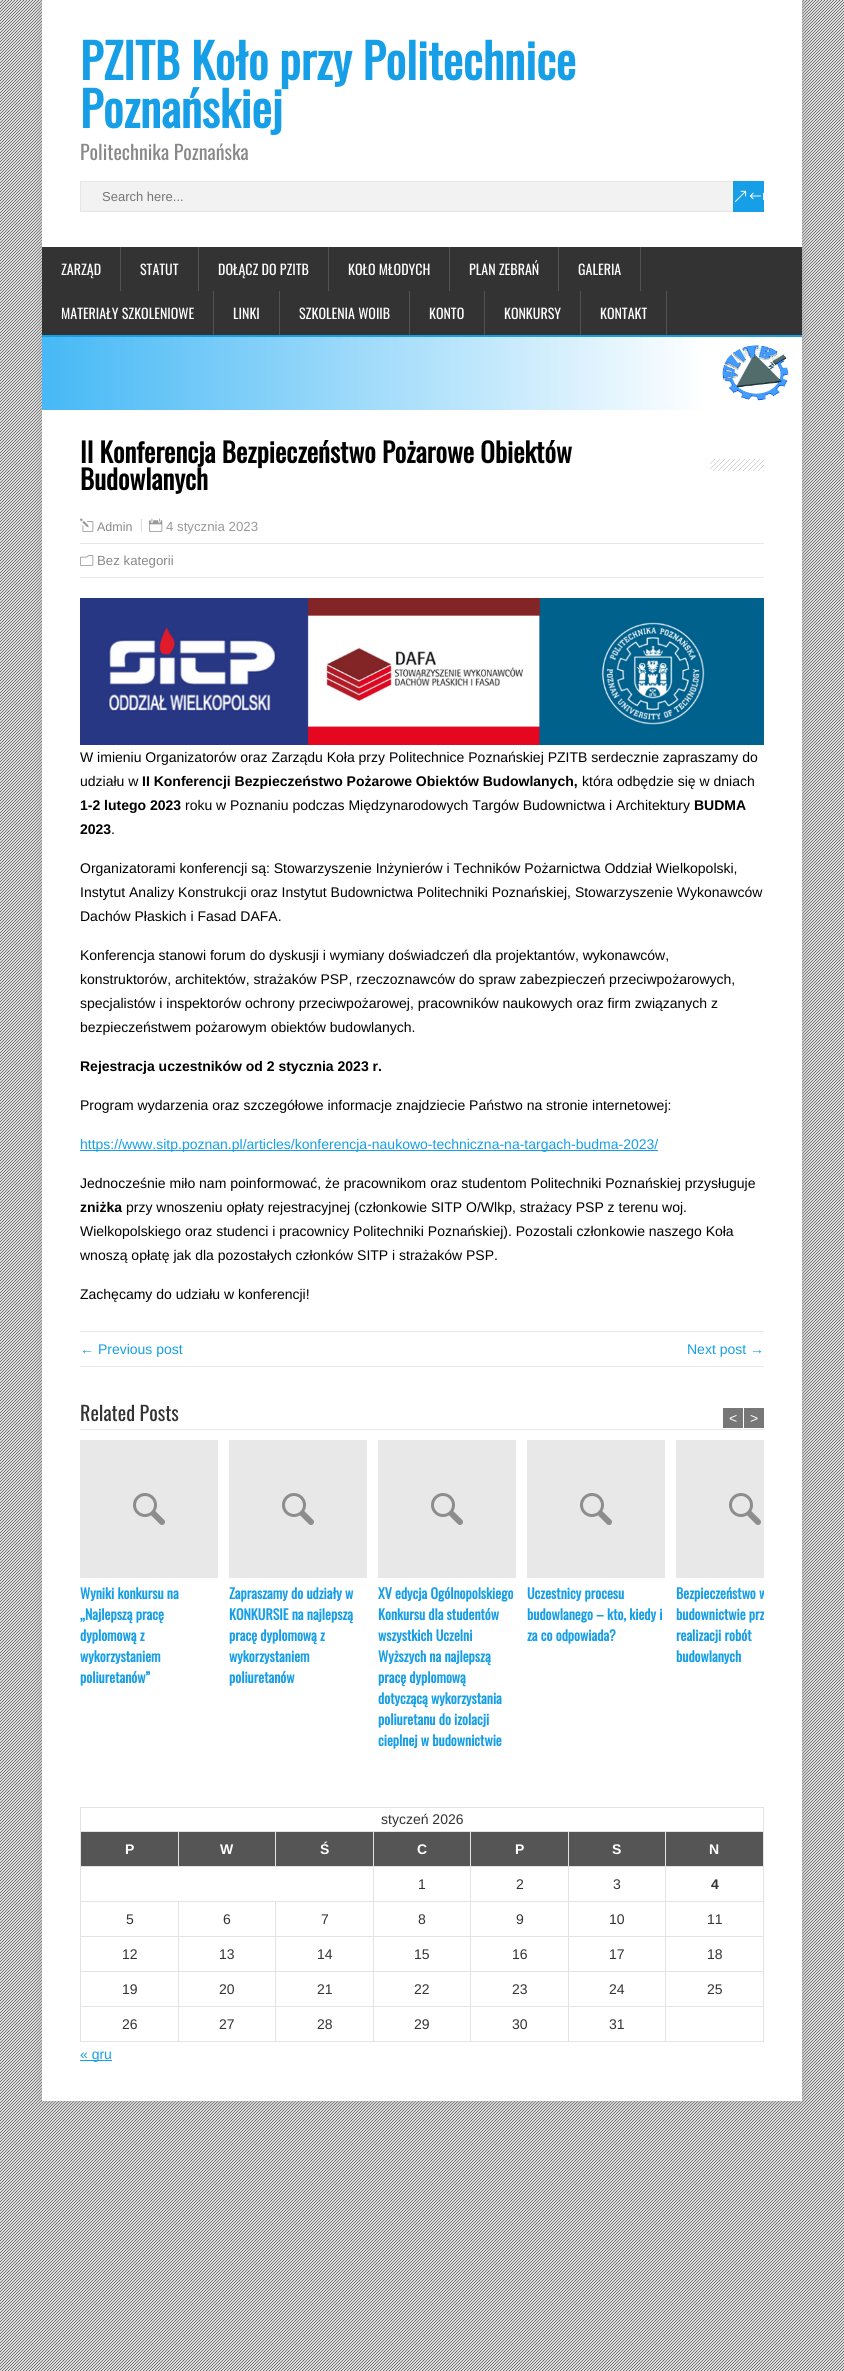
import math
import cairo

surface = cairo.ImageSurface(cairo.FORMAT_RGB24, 844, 2371)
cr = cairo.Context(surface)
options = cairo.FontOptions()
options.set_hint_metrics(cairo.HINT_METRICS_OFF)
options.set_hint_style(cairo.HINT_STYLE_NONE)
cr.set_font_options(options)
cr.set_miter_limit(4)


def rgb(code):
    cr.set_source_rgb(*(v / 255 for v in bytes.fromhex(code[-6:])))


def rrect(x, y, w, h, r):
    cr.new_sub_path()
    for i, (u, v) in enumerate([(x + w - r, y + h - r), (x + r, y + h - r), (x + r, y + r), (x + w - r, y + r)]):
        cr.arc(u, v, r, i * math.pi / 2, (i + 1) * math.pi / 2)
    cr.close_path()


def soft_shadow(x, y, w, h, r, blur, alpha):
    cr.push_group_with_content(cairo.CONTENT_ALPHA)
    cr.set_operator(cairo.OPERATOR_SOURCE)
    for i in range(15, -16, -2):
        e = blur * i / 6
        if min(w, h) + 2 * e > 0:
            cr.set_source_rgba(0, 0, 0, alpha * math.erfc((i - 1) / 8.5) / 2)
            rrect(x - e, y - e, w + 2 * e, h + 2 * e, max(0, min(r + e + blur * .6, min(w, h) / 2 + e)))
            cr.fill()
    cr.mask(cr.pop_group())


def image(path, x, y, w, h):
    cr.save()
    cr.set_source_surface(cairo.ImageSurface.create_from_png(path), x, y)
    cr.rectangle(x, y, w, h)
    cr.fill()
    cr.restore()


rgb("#dedede")
cr.paint()
image("img/1.png", 0, 0, 844, 2371)
rgb("#aaaaaa")
soft_shadow(42, 0, 760, 2101, 0, 5, 1)
rgb("#ffffff")
cr.rectangle(42, 0, 760, 2101)
cr.fill()
rgb("#f2f2f2")
cr.rectangle(81, 182, 652, 29)
cr.fill()
cr.rectangle(80.5, 181.5, 678, 30)
rgb("#e6e6e6")
cr.set_line_width(1)
cr.stroke()
rgb("#169fe6")
cr.rectangle(733, 181, 31, 31)
cr.fill()
image("img/2.png", 734, 190, 30, 12)
for x, y, w, h, color in [
    (42, 247, 760, 88, "#333333"),
    (42, 335, 760, 2, "#169fe6"),
    (120, 247, 1, 44, "#535353"),
    (198, 247, 1, 44, "#535353"),
    (328, 247, 1, 44, "#535353"),
    (449, 247, 1, 44, "#535353"),
    (558, 247, 1, 44, "#535353"),
    (640, 247, 1, 44, "#535353"),
    (213, 291, 1, 44, "#535353"),
    (279, 291, 1, 44, "#535353"),
    (409, 291, 1, 44, "#535353"),
    (484, 291, 1, 44, "#535353"),
    (580, 291, 1, 44, "#535353"),
    (666, 291, 1, 44, "#535353"),
]:
    rgb(color)
    cr.rectangle(x, y, w, h)
    cr.fill()
image("img/3.png", 42, 337, 747, 73)
image("img/4.png", 710, 459, 54, 12)
image("img/5.png", 80, 518, 14, 14)
image("img/6.png", 149, 518, 14, 14)
for x, y, w, h, color in [
    (141, 519, 1, 13, "#dbdbdb"),
    (80, 543, 684, 1, "#e8e8e8"),
    (80, 577, 684, 1, "#e8e8e8"),
]:
    rgb(color)
    cr.rectangle(x, y, w, h)
    cr.fill()
image("img/7.png", 80, 555, 14, 11)
image("img/8.png", 80, 598, 684, 147)
for x, y, w, h, color in [
    (80, 1150, 578, 1, "#169fe6"),
    (80, 1331, 684, 1, "#e8e8e8"),
    (80, 1366, 684, 1, "#e8e8e8"),
    (80, 1429, 684, 1, "#e8e8e8"),
    (723, 1408, 20, 20, "#777777"),
    (744, 1408, 20, 20, "#777777"),
]:
    rgb(color)
    cr.rectangle(x, y, w, h)
    cr.fill()
image("img/9.png", 80, 1440, 138, 138)
image("img/9.png", 229, 1440, 138, 138)
image("img/9.png", 378, 1440, 138, 138)
image("img/9.png", 527, 1440, 138, 138)
image("img/10.png", 676, 1440, 88, 138)
for x, y, w, h, color in [
    (80, 1807, 684, 1, "#e3e3e3"),
    (763, 1807, 1, 235, "#e3e3e3"),
    (80, 2041, 684, 1, "#e3e3e3"),
    (80, 1807, 1, 235, "#e3e3e3"),
    (81, 1832, 97, 34, "#555555"),
    (665, 1831, 99, 1, "#e3e3e3"),
    (665, 1866, 99, 1, "#e3e3e3"),
    (665, 1901, 99, 1, "#e3e3e3"),
    (665, 1936, 99, 1, "#e3e3e3"),
    (665, 1971, 99, 1, "#e3e3e3"),
    (665, 2006, 99, 1, "#e3e3e3"),
    (665, 2006, 1, 36, "#e3e3e3"),
    (568, 2006, 98, 1, "#e3e3e3"),
    (665, 1971, 1, 36, "#e3e3e3"),
    (568, 1971, 98, 1, "#e3e3e3"),
    (665, 1936, 1, 36, "#e3e3e3"),
    (568, 1936, 98, 1, "#e3e3e3"),
    (665, 1901, 1, 36, "#e3e3e3"),
    (568, 1901, 98, 1, "#e3e3e3"),
    (665, 1866, 1, 36, "#e3e3e3"),
    (568, 1866, 98, 1, "#e3e3e3"),
    (665, 1831, 1, 36, "#e3e3e3"),
    (568, 1831, 98, 1, "#e3e3e3"),
    (568, 2006, 1, 36, "#e3e3e3"),
    (470, 2006, 99, 1, "#e3e3e3"),
    (568, 1971, 1, 36, "#e3e3e3"),
    (470, 1971, 99, 1, "#e3e3e3"),
    (568, 1936, 1, 36, "#e3e3e3"),
    (470, 1936, 99, 1, "#e3e3e3"),
    (568, 1901, 1, 36, "#e3e3e3"),
    (470, 1901, 99, 1, "#e3e3e3"),
    (568, 1866, 1, 36, "#e3e3e3"),
    (470, 1866, 99, 1, "#e3e3e3"),
    (568, 1831, 1, 36, "#e3e3e3"),
    (470, 1831, 99, 1, "#e3e3e3"),
    (470, 2006, 1, 36, "#e3e3e3"),
    (373, 2006, 98, 1, "#e3e3e3"),
    (470, 1971, 1, 36, "#e3e3e3"),
    (373, 1971, 98, 1, "#e3e3e3"),
    (470, 1936, 1, 36, "#e3e3e3"),
    (373, 1936, 98, 1, "#e3e3e3"),
    (470, 1901, 1, 36, "#e3e3e3"),
    (373, 1901, 98, 1, "#e3e3e3"),
    (470, 1866, 1, 36, "#e3e3e3"),
    (373, 1866, 98, 1, "#e3e3e3"),
    (470, 1831, 1, 36, "#e3e3e3"),
    (373, 1831, 98, 1, "#e3e3e3"),
    (373, 2006, 1, 36, "#e3e3e3"),
    (275, 2006, 99, 1, "#e3e3e3"),
    (373, 1971, 1, 36, "#e3e3e3"),
    (275, 1971, 99, 1, "#e3e3e3"),
    (373, 1936, 1, 36, "#e3e3e3"),
    (275, 1936, 99, 1, "#e3e3e3"),
    (373, 1901, 1, 36, "#e3e3e3"),
    (275, 1901, 99, 1, "#e3e3e3"),
    (373, 1866, 1, 36, "#e3e3e3"),
    (80, 1866, 294, 1, "#e3e3e3"),
    (373, 1831, 1, 36, "#e3e3e3"),
    (275, 1831, 99, 1, "#e3e3e3"),
    (275, 1831, 1, 36, "#e3e3e3"),
    (178, 1831, 98, 1, "#e3e3e3"),
    (178, 1831, 1, 36, "#e3e3e3"),
    (80, 1831, 99, 1, "#e3e3e3"),
    (179, 1832, 96, 34, "#555555"),
    (276, 1832, 97, 34, "#555555"),
    (374, 1832, 96, 34, "#555555"),
    (471, 1832, 97, 34, "#555555"),
    (569, 1832, 96, 34, "#555555"),
    (666, 1832, 97, 34, "#555555"),
    (275, 2006, 1, 36, "#e3e3e3"),
    (178, 2006, 98, 1, "#e3e3e3"),
    (275, 1971, 1, 36, "#e3e3e3"),
    (178, 1971, 98, 1, "#e3e3e3"),
    (275, 1936, 1, 36, "#e3e3e3"),
    (178, 1936, 98, 1, "#e3e3e3"),
    (275, 1901, 1, 36, "#e3e3e3"),
    (178, 1901, 98, 1, "#e3e3e3"),
    (178, 2006, 1, 36, "#e3e3e3"),
    (80, 2006, 99, 1, "#e3e3e3"),
    (178, 1971, 1, 36, "#e3e3e3"),
    (80, 1971, 99, 1, "#e3e3e3"),
    (178, 1936, 1, 36, "#e3e3e3"),
    (80, 1936, 99, 1, "#e3e3e3"),
    (178, 1901, 1, 36, "#e3e3e3"),
    (80, 1901, 99, 1, "#e3e3e3"),
    (80, 2060, 32, 1, "#169fe6"),
]:
    rgb(color)
    cr.rectangle(x, y, w, h)
    cr.fill()
cr.select_font_face("Oswald", cairo.FONT_SLANT_NORMAL, cairo.FONT_WEIGHT_BOLD)
cr.set_font_size(48)
cr.move_to(80, 80)
cr.show_text("PZITB Koło przy Politechnice")
cr.move_to(80, 128)
cr.show_text("Poznańskiej")
cr.select_font_face("Oswald")
cr.set_font_size(20)
rgb("#888888")
cr.move_to(80, 160)
cr.show_text("Politechnika Poznańska")
cr.select_font_face("Liberation Sans")
cr.set_font_size(13)
rgb("#757575")
cr.move_to(102, 201)
cr.show_text("Search here...")
cr.select_font_face("Oswald")
cr.set_font_size(14)
rgb("#ffffff")
for x, y, s in [
    (61, 275, "ZARZĄD"),
    (140, 275, "STATUT"),
    (218, 275, "DOŁĄCZ DO PZITB"),
    (348, 275, "KOŁO MŁODYCH"),
    (469, 275, "PLAN ZEBRAŃ"),
    (578, 275, "GALERIA"),
    (61, 319, "MATERIAŁY SZKOLENIOWE"),
    (233, 319, "LINKI"),
    (299, 319, "SZKOLENIA WOIIB"),
    (429, 319, "KONTO"),
    (504, 319, "KONKURSY"),
    (600, 319, "KONTAKT"),
]:
    cr.move_to(x, y)
    cr.show_text(s)
cr.select_font_face("Oswald", cairo.FONT_SLANT_NORMAL, cairo.FONT_WEIGHT_BOLD)
cr.set_font_size(27)
rgb("#000000")
cr.move_to(80, 463)
cr.show_text("II Konferencja Bezpieczeństwo Pożarowe Obiektów")
cr.move_to(80, 490)
cr.show_text("Budowlanych")
cr.select_font_face("Liberation Sans")
cr.set_font_size(12.5)
rgb("#888888")
cr.move_to(97, 531)
cr.show_text("Admin")
cr.set_font_size(13.25)
rgb("#999999")
cr.move_to(166, 531)
cr.show_text("4 stycznia 2023")
rgb("#888888")
cr.move_to(97, 565)
cr.show_text("Bez kategorii")
cr.set_font_size(14)
rgb("#000000")
cr.move_to(80, 762)
cr.show_text("W imieniu Organizatorów oraz Zarządu Koła przy Politechnice Poznańskiej PZITB serdecznie zapraszamy do")
cr.move_to(80, 786)
cr.show_text("udziału w")
cr.select_font_face("Liberation Sans", cairo.FONT_SLANT_NORMAL, cairo.FONT_WEIGHT_BOLD)
cr.move_to(142, 786)
cr.show_text("II Konferencji Bezpieczeństwo Pożarowe Obiektów Budowlanych,")
cr.select_font_face("Liberation Sans")
cr.move_to(582, 786)
cr.show_text("która odbędzie się w dniach")
cr.select_font_face("Liberation Sans", cairo.FONT_SLANT_NORMAL, cairo.FONT_WEIGHT_BOLD)
cr.move_to(80, 810)
cr.show_text("1-2 lutego 2023")
cr.select_font_face("Liberation Sans")
cr.move_to(185, 810)
cr.show_text("roku w Poznaniu podczas Międzynarodowych Targów Budownictwa i Architektury")
cr.select_font_face("Liberation Sans", cairo.FONT_SLANT_NORMAL, cairo.FONT_WEIGHT_BOLD)
cr.move_to(694, 810)
cr.show_text("BUDMA")
cr.move_to(80, 834)
cr.show_text("2023")
cr.select_font_face("Liberation Sans")
for x, y, s in [
    (111, 834, "."),
    (80, 873, "Organizatorami konferencji są: Stowarzyszenie Inżynierów i Techników Pożarnictwa Oddział Wielkopolski,"),
    (80, 897, "Instytut Analizy Konstrukcji oraz Instytut Budownictwa Politechniki Poznańskiej, Stowarzyszenie Wykonawców"),
    (80, 921, "Dachów Płaskich i Fasad DAFA."),
    (80, 960, "Konferencja stanowi forum do dyskusji i wymiany doświadczeń dla projektantów, wykonawców,"),
    (80, 984, "konstruktorów, architektów, strażaków PSP, rzeczoznawców do spraw zabezpieczeń przeciwpożarowych,"),
    (80, 1008, "specjalistów i inspektorów ochrony przeciwpożarowej, pracowników naukowych oraz firm związanych z"),
    (80, 1032, "bezpieczeństwem pożarowym obiektów budowlanych."),
]:
    cr.move_to(x, y)
    cr.show_text(s)
cr.select_font_face("Liberation Sans", cairo.FONT_SLANT_NORMAL, cairo.FONT_WEIGHT_BOLD)
cr.move_to(80, 1071)
cr.show_text("Rejestracja uczestników od 2 stycznia 2023 r.")
cr.select_font_face("Liberation Sans")
cr.move_to(80, 1110)
cr.show_text("Program wydarzenia oraz szczegółowe informacje znajdziecie Państwo na stronie internetowej:")
rgb("#169fe6")
cr.move_to(80, 1149)
cr.show_text("https://www.sitp.poznan.pl/articles/konferencja-naukowo-techniczna-na-targach-budma-2023/")
rgb("#000000")
cr.move_to(80, 1188)
cr.show_text("Jednocześnie miło nam poinformować, że pracownikom oraz studentom Politechniki Poznańskiej przysługuje")
cr.select_font_face("Liberation Sans", cairo.FONT_SLANT_NORMAL, cairo.FONT_WEIGHT_BOLD)
cr.move_to(80, 1212)
cr.show_text("zniżka")
cr.select_font_face("Liberation Sans")
for x, y, s in [
    (126, 1212, "przy wnoszeniu opłaty rejestracyjnej (członkowie SITP O/Wlkp, strażacy PSP z terenu woj."),
    (80, 1236, "Wielkopolskiego oraz studenci i pracownicy Politechniki Poznańskiej). Pozostali członkowie naszego Koła"),
    (80, 1260, "wnoszą opłatę jak dla pozostałych członków SITP i strażaków PSP."),
    (80, 1299, "Zachęcamy do udziału w konferencji!"),
]:
    cr.move_to(x, y)
    cr.show_text(s)
rgb("#169fe6")
cr.move_to(80, 1354)
cr.show_text("← Previous post")
cr.move_to(687, 1354)
cr.show_text("Next post →")
cr.select_font_face("Oswald")
cr.set_font_size(20)
rgb("#333333")
cr.move_to(80, 1421)
cr.show_text("Related Posts")
cr.select_font_face("Liberation Sans")
cr.set_font_size(14)
rgb("#ffffff")
cr.move_to(729, 1423)
cr.show_text("<")
cr.move_to(750, 1423)
cr.show_text(">")
cr.select_font_face("Oswald", cairo.FONT_SLANT_NORMAL, cairo.FONT_WEIGHT_BOLD)
rgb("#169fe6")
for x, y, s in [
    (80, 1599, "Wyniki konkursu na"),
    (80, 1620, "„Najlepszą pracę"),
    (80, 1641, "dyplomową z"),
    (80, 1662, "wykorzystaniem"),
    (80, 1683, "poliuretanów”"),
    (229, 1599, "Zapraszamy do udziały w"),
    (229, 1620, "KONKURSIE na najlepszą"),
    (229, 1641, "pracę dyplomową z"),
    (229, 1662, "wykorzystaniem"),
    (229, 1683, "poliuretanów"),
    (378, 1599, "XV edycja Ogólnopolskiego"),
    (378, 1620, "Konkursu dla studentów"),
    (378, 1641, "wszystkich Uczelni"),
    (378, 1662, "Wyższych na najlepszą"),
    (378, 1683, "pracę dyplomową"),
    (378, 1704, "dotyczącą wykorzystania"),
    (378, 1725, "poliuretanu do izolacji"),
    (378, 1746, "cieplnej w budownictwie"),
    (527, 1599, "Uczestnicy procesu"),
    (527, 1620, "budowlanego – kto, kiedy i"),
    (527, 1641, "za co odpowiada?"),
]:
    cr.move_to(x, y)
    cr.show_text(s)
cr.save()
cr.rectangle(80, 1440, 684, 312)
cr.clip()
cr.move_to(676, 1599)
cr.show_text("Bezpieczeństwo w")
cr.restore()
for x, y, s in [
    (676, 1620, "budownictwie prz"),
    (676, 1641, "realizacji robót"),
    (676, 1662, "budowlanych"),
]:
    cr.move_to(x, y)
    cr.show_text(s)
cr.select_font_face("Liberation Sans")
rgb("#333333")
cr.move_to(381, 1824)
cr.show_text("styczeń 2026")
cr.select_font_face("Liberation Sans", cairo.FONT_SLANT_NORMAL, cairo.FONT_WEIGHT_BOLD)
rgb("#ffffff")
for x, y, s in [
    (125, 1854, "P"),
    (220, 1854, "W"),
    (320, 1854, "Ś"),
    (417, 1854, "C"),
    (515, 1854, "P"),
    (612, 1854, "S"),
    (709, 1854, "N"),
]:
    cr.move_to(x, y)
    cr.show_text(s)
cr.select_font_face("Liberation Sans")
rgb("#333333")
for x, y, s in [
    (418, 1889, "1"),
    (516, 1889, "2"),
    (613, 1889, "3"),
]:
    cr.move_to(x, y)
    cr.show_text(s)
cr.select_font_face("Liberation Sans", cairo.FONT_SLANT_NORMAL, cairo.FONT_WEIGHT_BOLD)
cr.move_to(711, 1889)
cr.show_text("4")
cr.select_font_face("Liberation Sans")
for x, y, s in [
    (126, 1924, "5"),
    (223, 1924, "6"),
    (321, 1924, "7"),
    (418, 1924, "8"),
    (516, 1924, "9"),
    (609, 1924, "10"),
    (707, 1924, "11"),
    (122, 1959, "12"),
    (219, 1959, "13"),
    (317, 1959, "14"),
    (414, 1959, "15"),
    (512, 1959, "16"),
    (609, 1959, "17"),
    (707, 1959, "18"),
    (122, 1994, "19"),
    (219, 1994, "20"),
    (317, 1994, "21"),
    (414, 1994, "22"),
    (512, 1994, "23"),
    (609, 1994, "24"),
    (707, 1994, "25"),
    (122, 2029, "26"),
    (219, 2029, "27"),
    (317, 2029, "28"),
    (414, 2029, "29"),
    (512, 2029, "30"),
    (609, 2029, "31"),
]:
    cr.move_to(x, y)
    cr.show_text(s)
rgb("#169fe6")
cr.move_to(80, 2059)
cr.show_text("« gru")
surface.write_to_png("page.png")
